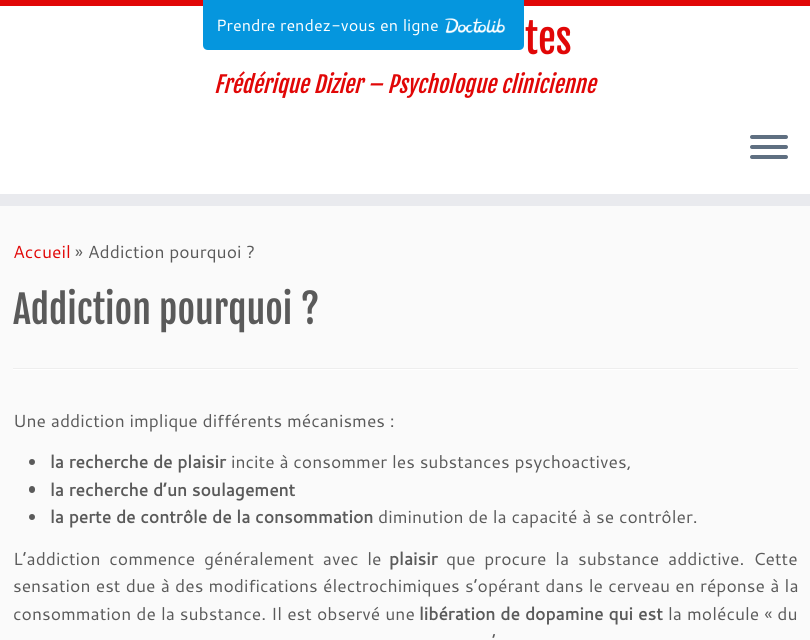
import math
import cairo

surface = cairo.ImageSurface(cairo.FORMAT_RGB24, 810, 640)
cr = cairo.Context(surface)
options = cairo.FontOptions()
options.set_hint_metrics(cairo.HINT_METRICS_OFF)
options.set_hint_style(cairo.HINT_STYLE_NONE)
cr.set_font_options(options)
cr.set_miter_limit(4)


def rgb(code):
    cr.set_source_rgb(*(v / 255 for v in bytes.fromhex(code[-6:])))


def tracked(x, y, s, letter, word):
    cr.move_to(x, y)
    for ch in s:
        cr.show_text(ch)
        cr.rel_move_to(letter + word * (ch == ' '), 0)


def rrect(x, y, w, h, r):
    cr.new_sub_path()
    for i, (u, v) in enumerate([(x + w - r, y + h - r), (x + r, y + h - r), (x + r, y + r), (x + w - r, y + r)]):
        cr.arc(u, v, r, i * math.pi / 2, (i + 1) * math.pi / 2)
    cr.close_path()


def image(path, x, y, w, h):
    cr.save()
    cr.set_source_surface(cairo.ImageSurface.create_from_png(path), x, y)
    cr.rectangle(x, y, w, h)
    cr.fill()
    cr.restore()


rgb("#fafafa")
cr.paint()
rgb("#ffffff")
cr.rectangle(0, 6, 810, 188)
cr.fill()
rgb("#e10707")
cr.rectangle(0, 0, 810, 6)
cr.fill()
rgb("#0596de")
cr.new_path()
cr.move_to(203, 0)
cr.line_to(524, 0)
cr.line_to(524, 45)
cr.curve_to(524, 48, 522, 50, 519, 50)
cr.line_to(208, 50)
cr.curve_to(205, 50, 203, 48, 203, 45)
cr.close_path()
cr.fill()
image("img/1.png", 445, 18, 61, 16)
rgb("#e9eaee")
cr.rectangle(0, 194, 810, 12)
cr.fill()
rgb("#5f6f81")
rrect(750, 135, 38, 4, 2)
cr.fill()
rrect(750, 145, 38, 4, 2)
cr.fill()
rrect(750, 155, 38, 4, 2)
cr.fill()
rgb("#eeeeee")
cr.rectangle(13, 368, 785, 1)
cr.fill()
rgb("#ffffff")
cr.rectangle(13, 369, 785, 1)
cr.fill()
rgb("#5a5a5a")
cr.arc(32, 462, 3, 0, 2 * math.pi)
cr.fill()
rrect(29, 486, 6, 7, 3)
cr.fill()
cr.arc(32, 517, 3, 0, 2 * math.pi)
cr.fill()
cr.select_font_face("Cantarell")
cr.set_font_size(16.25)
rgb("#ffffff")
cr.move_to(216, 31)
cr.show_text("Prendre rendez-vous en ligne")
cr.select_font_face("Fjalla One")
cr.set_font_size(40)
rgb("#e10707")
cr.move_to(525, 54)
cr.show_text("tes")
cr.select_font_face("Fjalla One", cairo.FONT_SLANT_ITALIC)
cr.set_font_size(22.5)
cr.move_to(214, 93)
cr.show_text("Frédérique Dizier – Psychologue clinicienne")
cr.select_font_face("Cantarell")
cr.set_font_size(17.5)
cr.move_to(13, 258)
cr.show_text("Accueil")
rgb("#5a5a5a")
cr.move_to(75, 258)
cr.show_text("» Addiction pourquoi ?")
cr.select_font_face("Fjalla One")
cr.set_font_size(38)
cr.move_to(13, 324)
cr.show_text("Addiction pourquoi ?")
cr.select_font_face("Cantarell")
cr.set_font_size(17.5)
cr.move_to(13, 427)
cr.show_text("Une addiction implique différents mécanismes :")
cr.select_font_face("Cantarell", cairo.FONT_SLANT_NORMAL, cairo.FONT_WEIGHT_BOLD)
cr.move_to(50, 468)
cr.show_text("la recherche de plaisir")
cr.select_font_face("Cantarell")
cr.move_to(231, 468)
cr.show_text("incite à consommer les substances psychoactives,")
cr.select_font_face("Cantarell", cairo.FONT_SLANT_NORMAL, cairo.FONT_WEIGHT_BOLD)
cr.move_to(50, 496)
cr.show_text("la recherche d’un soulagement")
cr.move_to(50, 523)
cr.show_text("la perte de contrôle de la consommation")
cr.select_font_face("Cantarell")
cr.move_to(378, 523)
cr.show_text("diminution de la capacité à se contrôler.")
tracked(13, 565, "L’addiction commence généralement avec le", 0, 4)
cr.select_font_face("Cantarell", cairo.FONT_SLANT_NORMAL, cairo.FONT_WEIGHT_BOLD)
cr.move_to(389, 565)
cr.show_text("plaisir")
cr.select_font_face("Cantarell")
tracked(446, 565, "que procure la substance addictive. Cette", 0, 4)
tracked(13, 592, "sensation est due à des modifications électrochimiques s’opérant dans le cerveau en réponse à la", 0, 0.5)
tracked(13, 620, "consommation de la substance. Il est observé une", 0, 0.25)
cr.select_font_face("Cantarell", cairo.FONT_SLANT_NORMAL, cairo.FONT_WEIGHT_BOLD)
tracked(419, 620, "libération de dopamine qui est", 0, 0.25)
cr.select_font_face("Cantarell")
tracked(668, 620, "la molécule « du", 0, 0.25)
tracked(492, 647, "’", 0, 2)
surface.write_to_png("page.png")
